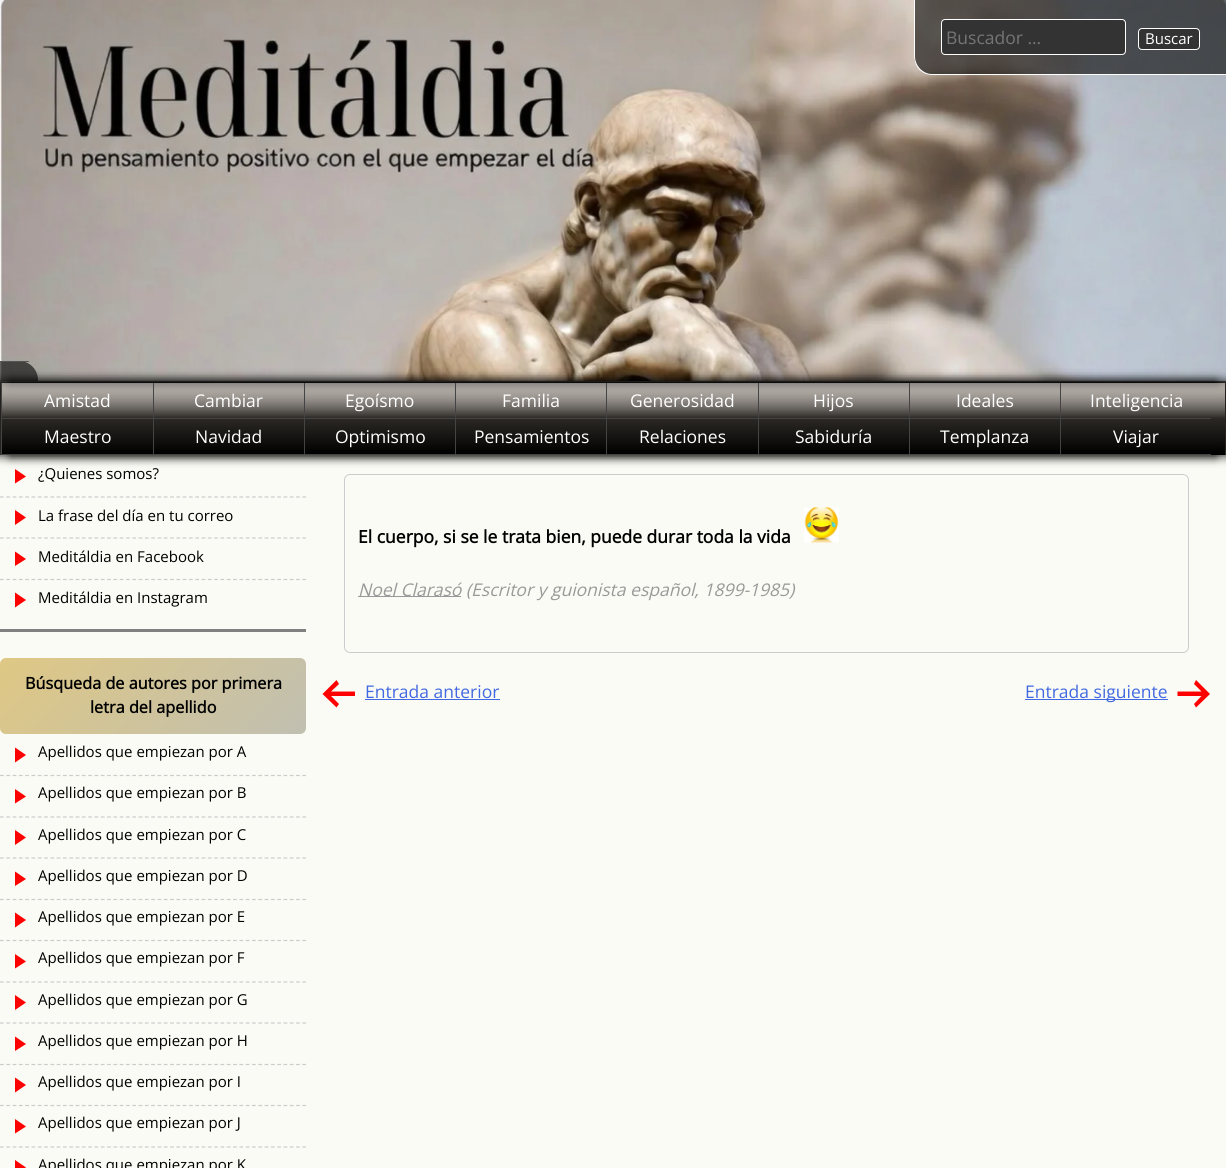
import math
import cairo

surface = cairo.ImageSurface(cairo.FORMAT_RGB24, 1226, 1168)
cr = cairo.Context(surface)
options = cairo.FontOptions()
options.set_hint_metrics(cairo.HINT_METRICS_OFF)
options.set_hint_style(cairo.HINT_STYLE_NONE)
cr.set_font_options(options)
cr.set_miter_limit(4)


def rgb(code):
    cr.set_source_rgb(*(v / 255 for v in bytes.fromhex(code[-6:])))


def rrect(x, y, w, h, r):
    cr.new_sub_path()
    for i, (u, v) in enumerate([(x + w - r, y + h - r), (x + r, y + h - r), (x + r, y + r), (x + w - r, y + r)]):
        cr.arc(u, v, r, i * math.pi / 2, (i + 1) * math.pi / 2)
    cr.close_path()


def soft_shadow(x, y, w, h, r, blur, alpha):
    cr.push_group_with_content(cairo.CONTENT_ALPHA)
    cr.set_operator(cairo.OPERATOR_SOURCE)
    for i in range(15, -16, -2):
        e = blur * i / 6
        if min(w, h) + 2 * e > 0:
            cr.set_source_rgba(0, 0, 0, alpha * math.erfc((i - 1) / 8.5) / 2)
            rrect(x - e, y - e, w + 2 * e, h + 2 * e, max(0, min(r + e + blur * .6, min(w, h) / 2 + e)))
            cr.fill()
    cr.mask(cr.pop_group())


def image(path, x, y, w, h):
    cr.save()
    cr.set_source_surface(cairo.ImageSurface.create_from_png(path), x, y)
    cr.rectangle(x, y, w, h)
    cr.fill()
    cr.restore()


rgb("#b5a799")
cr.paint()
rgb("#000000")
soft_shadow(-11, 454, 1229, 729, 0, 5, 0.8)
soft_shadow(9, 454, 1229, 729, 0, 5, 0.8)
gradient = cairo.LinearGradient(613, 0, 613, 455)
gradient.add_color_stop_rgba(0, 0, 0, 0, 0.8)
gradient.add_color_stop_rgba(1, 0, 0, 0, 0)
cr.set_source(gradient)
cr.rectangle(0, 382, 1226, 61)
cr.fill()
rgb("#000000")
soft_shadow(-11, -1, 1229, 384, 0, 5, 0.8)
soft_shadow(9, -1, 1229, 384, 0, 5, 0.8)
image("img/1.png", 0, 0, 1226, 381)
cr.set_source_rgba(0, 0, 0, 0.6)
cr.new_path()
cr.move_to(914, 0)
cr.line_to(1226, 0)
cr.line_to(1226, 75)
cr.line_to(933, 75)
cr.curve_to(922.5, 75, 914, 66.5, 914, 56)
cr.close_path()
cr.fill()
rgb("#ffffff")
cr.set_fill_rule(cairo.FILL_RULE_EVEN_ODD)
cr.new_path()
cr.move_to(914, 0)
cr.line_to(1226, 0)
cr.line_to(1226, 75)
cr.line_to(932, 75)
cr.curve_to(922, 75, 914, 67, 914, 56)
cr.close_path()
cr.move_to(915, 0)
cr.line_to(1226, 0)
cr.line_to(1226, 74)
cr.line_to(932, 74)
cr.curve_to(923, 74, 915, 66, 915, 56)
cr.close_path()
cr.fill()
rgb("#333333")
rrect(941.5, 19.5, 184, 35, 3.5)
cr.fill_preserve()
rgb("#ffffff")
cr.set_line_width(1)
cr.stroke()
rgb("#333333")
rrect(1138.5, 28.5, 61, 21, 3.5)
cr.fill_preserve()
rgb("#ffffff")
cr.stroke()
rgb("#555555")
cr.rectangle(0, 381, 1226, 1)
cr.fill()
rgb("#fbfbf5")
cr.rectangle(0, 455, 1226, 713)
cr.fill()
cr.save()
cr.new_path()
cr.move_to(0, 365)
cr.line_to(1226, 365)
cr.line_to(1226, 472)
cr.line_to(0, 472)
cr.close_path()
cr.move_to(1, 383)
cr.line_to(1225, 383)
cr.line_to(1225, 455)
cr.line_to(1, 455)
cr.close_path()
cr.clip()
rgb("#000000")
soft_shadow(-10, 381, 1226, 75, 0, 5, 0.8)
soft_shadow(10, 381, 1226, 75, 0, 5, 0.8)
cr.restore()
cr.set_source_rgba(0, 0, 0, 0.6)
cr.new_path()
cr.move_to(0, 361)
cr.line_to(19, 361)
cr.curve_to(29.5, 361, 38, 369.5, 38, 380)
cr.line_to(38, 381)
cr.line_to(0, 381)
cr.close_path()
cr.fill()
rgb("#555555")
cr.rectangle(0, 361, 29, 1)
cr.fill()
gradient = cairo.LinearGradient(613, 382, 613, 455)
gradient.add_color_stop_rgba(0, 1, 1, 1, 0.4)
gradient.add_color_stop_rgba(0.5, 0, 0, 0, 0.75)
gradient.add_color_stop_rgba(1, 0, 0, 0, 1)
cr.set_source(gradient)
cr.rectangle(2, 383, 1223, 72)
cr.fill()
for x, y, w, h, color in [
    (1, 418, 1210, 1, "#444444"),
    (1, 383, 1, 36, "#444444"),
    (153, 383, 1, 36, "#444444"),
    (304, 383, 1, 36, "#444444"),
    (455, 383, 1, 36, "#444444"),
    (606, 383, 1, 36, "#444444"),
    (758, 383, 1, 36, "#444444"),
    (909, 383, 1, 36, "#444444"),
    (1060, 383, 1, 36, "#444444"),
    (1, 454, 1210, 1, "#444444"),
    (1, 419, 1, 36, "#444444"),
    (153, 419, 1, 36, "#444444"),
    (304, 419, 1, 36, "#444444"),
    (455, 419, 1, 36, "#444444"),
    (606, 419, 1, 36, "#444444"),
    (758, 419, 1, 36, "#444444"),
    (909, 419, 1, 36, "#444444"),
    (1060, 419, 1, 36, "#444444"),
]:
    rgb(color)
    cr.rectangle(x, y, w, h)
    cr.fill()
rgb("#ff0000")
cr.set_fill_rule(cairo.FILL_RULE_WINDING)
cr.new_path()
cr.move_to(15, 469)
cr.line_to(26, 476.5)
cr.line_to(15, 483.5)
cr.close_path()
cr.fill()
cr.new_path()
cr.move_to(0, 497)
cr.line_to(306, 497)
rgb("#cccccc")
cr.set_line_width(1.2)
cr.set_dash([3.75, 2.55])
cr.stroke()
rgb("#ff0000")
cr.new_path()
cr.move_to(15, 510)
cr.line_to(26, 517.5)
cr.line_to(15, 525)
cr.close_path()
cr.fill()
cr.new_path()
cr.move_to(0, 538)
cr.line_to(306, 538)
rgb("#cccccc")
cr.stroke()
rgb("#ff0000")
cr.new_path()
cr.move_to(15, 551.5)
cr.line_to(26, 559)
cr.line_to(15, 566)
cr.close_path()
cr.fill()
cr.new_path()
cr.move_to(0, 579.5)
cr.line_to(306, 579.5)
rgb("#cccccc")
cr.stroke()
rgb("#ff0000")
cr.new_path()
cr.move_to(15, 592.5)
cr.line_to(26, 600)
cr.line_to(15, 607.5)
cr.close_path()
cr.fill()
rgb("#808080")
cr.rectangle(0, 629, 306, 3)
cr.fill()
gradient = cairo.LinearGradient(58, 600, 249, 791)
gradient.add_color_stop_rgba(0, 0.875, 0.784, 0.518, 1)
gradient.add_color_stop_rgba(1, 0.753, 0.749, 0.694, 1)
cr.set_source(gradient)
rrect(0, 658, 306, 76, 6)
cr.fill()
rgb("#ff0000")
cr.new_path()
cr.move_to(15, 747.5)
cr.line_to(26, 755)
cr.line_to(15, 762.5)
cr.close_path()
cr.fill()
cr.new_path()
cr.move_to(0, 775.5)
cr.line_to(306, 775.5)
rgb("#cccccc")
cr.stroke()
rgb("#ff0000")
cr.new_path()
cr.move_to(15, 789)
cr.line_to(26, 796.5)
cr.line_to(15, 803.5)
cr.close_path()
cr.fill()
cr.new_path()
cr.move_to(0, 817)
cr.line_to(306, 817)
rgb("#cccccc")
cr.stroke()
rgb("#ff0000")
cr.new_path()
cr.move_to(15, 830)
cr.line_to(26, 837.5)
cr.line_to(15, 845)
cr.close_path()
cr.fill()
cr.new_path()
cr.move_to(0, 858)
cr.line_to(306, 858)
rgb("#cccccc")
cr.stroke()
rgb("#ff0000")
cr.new_path()
cr.move_to(15, 871.5)
cr.line_to(26, 879)
cr.line_to(15, 886)
cr.close_path()
cr.fill()
cr.new_path()
cr.move_to(0, 899.5)
cr.line_to(306, 899.5)
rgb("#cccccc")
cr.stroke()
rgb("#ff0000")
cr.new_path()
cr.move_to(15, 912.5)
cr.line_to(26, 920)
cr.line_to(15, 927.5)
cr.close_path()
cr.fill()
cr.new_path()
cr.move_to(0, 940.5)
cr.line_to(306, 940.5)
rgb("#cccccc")
cr.stroke()
rgb("#ff0000")
cr.new_path()
cr.move_to(15, 954)
cr.line_to(26, 961.5)
cr.line_to(15, 968.5)
cr.close_path()
cr.fill()
cr.new_path()
cr.move_to(0, 982)
cr.line_to(306, 982)
rgb("#cccccc")
cr.stroke()
rgb("#ff0000")
cr.new_path()
cr.move_to(15, 995)
cr.line_to(26, 1002.5)
cr.line_to(15, 1010)
cr.close_path()
cr.fill()
cr.new_path()
cr.move_to(0, 1023)
cr.line_to(306, 1023)
rgb("#cccccc")
cr.stroke()
rgb("#ff0000")
cr.new_path()
cr.move_to(15, 1036.5)
cr.line_to(26, 1044)
cr.line_to(15, 1051)
cr.close_path()
cr.fill()
cr.new_path()
cr.move_to(0, 1064.5)
cr.line_to(306, 1064.5)
rgb("#cccccc")
cr.stroke()
rgb("#ff0000")
cr.new_path()
cr.move_to(15, 1077.5)
cr.line_to(26, 1085)
cr.line_to(15, 1092.5)
cr.close_path()
cr.fill()
cr.new_path()
cr.move_to(0, 1105.5)
cr.line_to(306, 1105.5)
rgb("#cccccc")
cr.stroke()
rgb("#ff0000")
cr.new_path()
cr.move_to(15, 1119)
cr.line_to(26, 1126.5)
cr.line_to(15, 1133.5)
cr.close_path()
cr.fill()
cr.new_path()
cr.move_to(0, 1147)
cr.line_to(306, 1147)
rgb("#cccccc")
cr.stroke()
rgb("#ff0000")
cr.new_path()
cr.move_to(15, 1160)
cr.line_to(26, 1167.5)
cr.line_to(15, 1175)
cr.close_path()
cr.fill()
rrect(344.5, 474.5, 844, 178, 5.5)
rgb("#cccccc")
cr.set_line_width(1)
cr.set_dash([])
cr.stroke()
image("img/2.png", 804, 507, 35, 36)
rgb("#999999")
cr.rectangle(358, 596, 103, 1)
cr.fill()
rgb("#ff0000")
cr.new_path()
cr.move_to(355, 691.5)
cr.line_to(355, 696)
cr.line_to(331, 696)
cr.line_to(339, 704)
cr.line_to(336.5, 707.5)
cr.line_to(322.5, 694)
cr.line_to(336.5, 680)
cr.line_to(339, 684)
cr.line_to(331, 691.5)
cr.close_path()
cr.fill()
rgb("#4169e1")
cr.rectangle(365, 699, 135, 1)
cr.fill()
cr.rectangle(1025, 699, 143, 1)
cr.fill()
rgb("#ff0000")
cr.new_path()
cr.move_to(1177.5, 696)
cr.line_to(1177.5, 691.5)
cr.line_to(1201.5, 691.5)
cr.line_to(1194, 684)
cr.line_to(1196, 680)
cr.line_to(1210, 694)
cr.line_to(1196, 707.5)
cr.line_to(1194, 704)
cr.line_to(1201.5, 696)
cr.close_path()
cr.fill()
cr.select_font_face("Open Sans")
cr.set_font_size(17.5)
rgb("#757575")
cr.move_to(946, 44)
cr.show_text("Buscador …")
cr.set_font_size(15)
rgb("#ffffff")
cr.move_to(1145, 44)
cr.show_text("Buscar")
cr.set_font_size(17.5)
for x, y, s in [
    (44, 407, "Amistad"),
    (194, 407, "Cambiar"),
    (345, 407, "Egoísmo"),
    (502, 407, "Familia"),
    (630, 407, "Generosidad"),
    (813, 407, "Hijos"),
    (956, 407, "Ideales"),
    (1090, 407, "Inteligencia"),
    (44, 443, "Maestro"),
    (195, 443, "Navidad"),
    (335, 443, "Optimismo"),
    (474, 443, "Pensamientos"),
    (639, 443, "Relaciones"),
    (795, 443, "Sabiduría"),
    (940, 443, "Templanza"),
    (1113, 443, "Viajar"),
]:
    cr.move_to(x, y)
    cr.show_text(s)
cr.set_font_size(15)
rgb("#000000")
for x, y, s in [
    (38, 479, "¿Quienes somos?"),
    (38, 521, "La frase del día en tu correo"),
    (38, 562, "Meditáldia en Facebook"),
    (38, 603, "Meditáldia en Instagram"),
]:
    cr.move_to(x, y)
    cr.show_text(s)
cr.select_font_face("Open Sans", cairo.FONT_SLANT_NORMAL, cairo.FONT_WEIGHT_BOLD)
cr.set_font_size(16.25)
cr.move_to(25, 689)
cr.show_text("Búsqueda de autores por primera")
cr.move_to(90, 713)
cr.show_text("letra del apellido")
cr.select_font_face("Open Sans")
cr.set_font_size(15)
for x, y, s in [
    (38, 757, "Apellidos que empiezan por A"),
    (38, 798, "Apellidos que empiezan por B"),
    (38, 840, "Apellidos que empiezan por C"),
    (38, 881, "Apellidos que empiezan por D"),
    (38, 922, "Apellidos que empiezan por E"),
    (38, 963, "Apellidos que empiezan por F"),
    (38, 1005, "Apellidos que empiezan por G"),
    (38, 1046, "Apellidos que empiezan por H"),
    (38, 1087, "Apellidos que empiezan por I"),
    (38, 1128, "Apellidos que empiezan por J"),
    (38, 1170, "Apellidos que empiezan por K"),
]:
    cr.move_to(x, y)
    cr.show_text(s)
cr.select_font_face("Open Sans", cairo.FONT_SLANT_NORMAL, cairo.FONT_WEIGHT_BOLD)
cr.set_font_size(17.5)
cr.move_to(358, 543)
cr.show_text("El cuerpo, si se le trata bien, puede durar toda la vida")
cr.select_font_face("Open Sans", cairo.FONT_SLANT_ITALIC)
rgb("#999999")
cr.move_to(358, 596)
cr.show_text("Noel Clarasó (Escritor y guionista español, 1899-1985)")
cr.select_font_face("Open Sans")
rgb("#4169e1")
cr.move_to(365, 698)
cr.show_text("Entrada anterior")
cr.move_to(1025, 698)
cr.show_text("Entrada siguiente")
surface.write_to_png("page.png")
